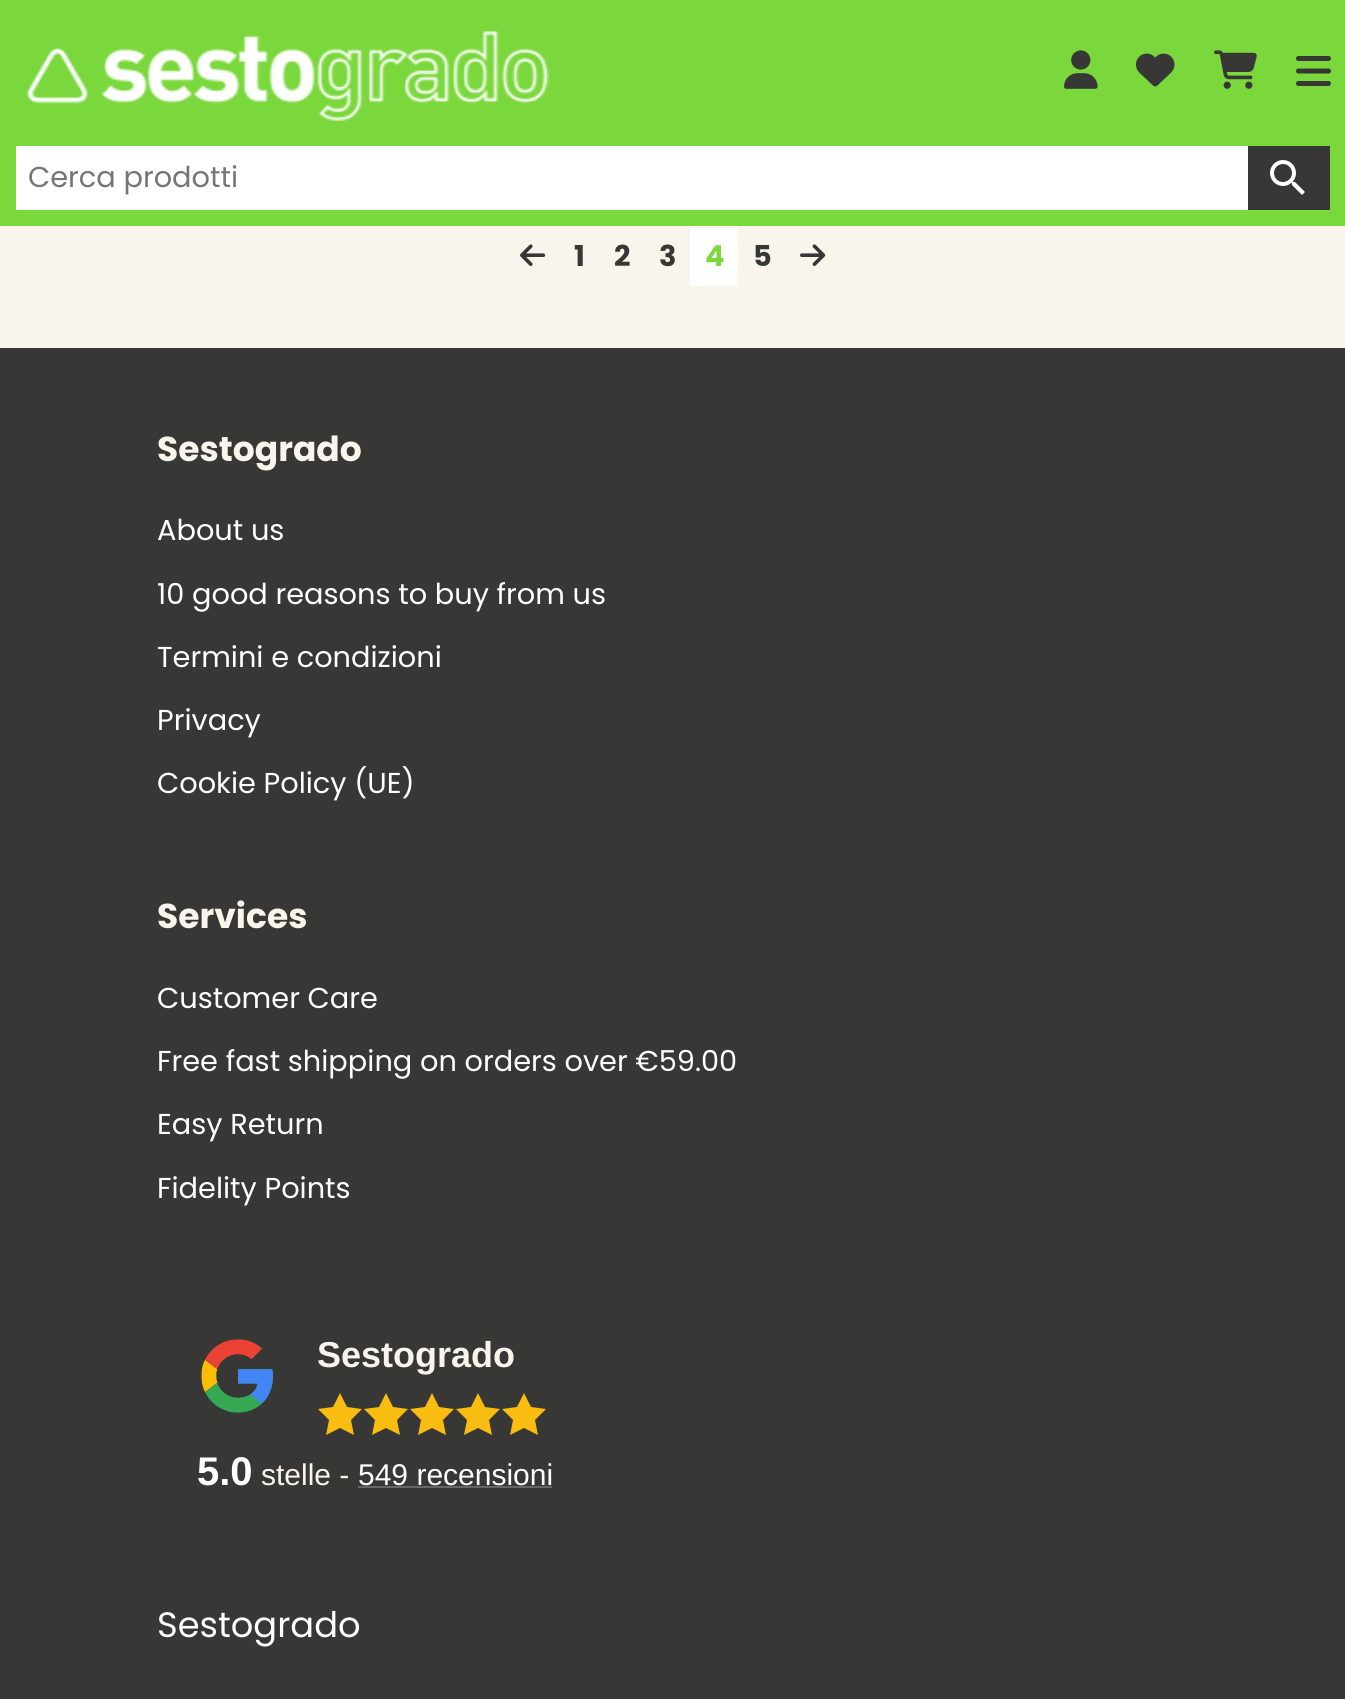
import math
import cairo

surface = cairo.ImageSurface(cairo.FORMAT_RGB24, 1345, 1699)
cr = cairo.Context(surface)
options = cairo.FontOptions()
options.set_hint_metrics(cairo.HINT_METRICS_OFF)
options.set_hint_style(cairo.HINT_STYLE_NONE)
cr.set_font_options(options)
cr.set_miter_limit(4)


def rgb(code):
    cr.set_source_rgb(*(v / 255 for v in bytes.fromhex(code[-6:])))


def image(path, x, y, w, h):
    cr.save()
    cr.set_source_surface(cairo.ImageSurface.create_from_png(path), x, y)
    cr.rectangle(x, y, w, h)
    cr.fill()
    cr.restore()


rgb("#faf5ec")
cr.paint()
rgb("#7ad73c")
cr.rectangle(0, 0, 1345, 226)
cr.fill()
image("img/1.png", 26, 31, 524, 91)
image("img/2.png", 1064, 50, 34, 39)
image("img/3.png", 1136, 53, 39, 34)
image("img/4.png", 1214, 50, 43, 39)
image("img/5.png", 1296, 56, 35, 30)
rgb("#ffffff")
cr.rectangle(16, 146, 1232, 64)
cr.fill()
rgb("#373836")
cr.rectangle(1248, 146, 82, 64)
cr.fill()
image("img/6.png", 1270, 160, 35, 35)
image("img/7.png", 520, 244, 26, 22)
rgb("#ffffff")
cr.rectangle(690, 228, 48, 58)
cr.fill()
image("img/8.png", 800, 244, 26, 22)
rgb("#373836")
cr.rectangle(0, 348, 1345, 1351)
cr.fill()
image("img/9.png", 201, 1339, 72, 74)
rgb("#f9bc11")
cr.new_path()
cr.move_to(362, 1409)
cr.line_to(347, 1407)
cr.line_to(340, 1393)
cr.line_to(333, 1407)
cr.line_to(318, 1409)
cr.line_to(329, 1420)
cr.line_to(326, 1435)
cr.line_to(340, 1428)
cr.line_to(354, 1435)
cr.line_to(351, 1420)
cr.close_path()
cr.fill()
cr.new_path()
cr.move_to(408, 1409)
cr.line_to(393, 1407)
cr.line_to(386, 1393)
cr.line_to(379, 1407)
cr.line_to(364, 1409)
cr.line_to(375, 1420)
cr.line_to(372, 1435)
cr.line_to(386, 1428)
cr.line_to(400, 1435)
cr.line_to(397, 1420)
cr.close_path()
cr.fill()
cr.new_path()
cr.move_to(454, 1409)
cr.line_to(439, 1407)
cr.line_to(432, 1393)
cr.line_to(425, 1407)
cr.line_to(410, 1409)
cr.line_to(421, 1420)
cr.line_to(418, 1435)
cr.line_to(432, 1428)
cr.line_to(446, 1435)
cr.line_to(443, 1420)
cr.close_path()
cr.fill()
cr.new_path()
cr.move_to(500, 1409)
cr.line_to(485, 1407)
cr.line_to(478, 1393)
cr.line_to(471, 1407)
cr.line_to(456, 1409)
cr.line_to(467, 1420)
cr.line_to(464, 1435)
cr.line_to(478, 1428)
cr.line_to(492, 1435)
cr.line_to(489, 1420)
cr.close_path()
cr.fill()
cr.new_path()
cr.move_to(546, 1409)
cr.line_to(531, 1407)
cr.line_to(524, 1393)
cr.line_to(517, 1407)
cr.line_to(502, 1409)
cr.line_to(513, 1420)
cr.line_to(510, 1435)
cr.line_to(524, 1428)
cr.line_to(538, 1435)
cr.line_to(535, 1420)
cr.close_path()
cr.fill()
rgb("#666666")
cr.rectangle(358, 1486, 194, 2)
cr.fill()
cr.select_font_face("Poppins")
cr.set_font_size(28.8)
rgb("#757575")
cr.move_to(28, 187)
cr.show_text("Cerca prodotti")
cr.select_font_face("Poppins", cairo.FONT_SLANT_NORMAL, cairo.FONT_WEIGHT_BOLD)
rgb("#373836")
for x, y, s in [
    (574, 266, "1"),
    (614, 266, "2"),
    (659, 266, "3"),
]:
    cr.move_to(x, y)
    cr.show_text(s)
rgb("#7ad73c")
cr.move_to(705, 266)
cr.show_text("4")
rgb("#373836")
cr.move_to(753, 266)
cr.show_text("5")
cr.set_font_size(34.5)
rgb("#faf5ec")
cr.move_to(157, 461)
cr.show_text("Sestogrado")
cr.select_font_face("Poppins")
cr.set_font_size(28.8)
rgb("#ffffff")
for x, y, s in [
    (157, 540, "About us"),
    (157, 604, "10 good reasons to buy from us"),
    (157, 667, "Termini e condizioni"),
    (157, 730, "Privacy"),
    (157, 793, "Cookie Policy (UE)"),
]:
    cr.move_to(x, y)
    cr.show_text(s)
cr.select_font_face("Poppins", cairo.FONT_SLANT_NORMAL, cairo.FONT_WEIGHT_BOLD)
cr.set_font_size(34.5)
rgb("#faf5ec")
cr.move_to(157, 928)
cr.show_text("Services")
cr.select_font_face("Poppins")
cr.set_font_size(28.8)
rgb("#ffffff")
for x, y, s in [
    (157, 1008, "Customer Care"),
    (157, 1071, "Free fast shipping on orders over €59.00"),
    (157, 1134, "Easy Return"),
    (157, 1198, "Fidelity Points"),
]:
    cr.move_to(x, y)
    cr.show_text(s)
cr.select_font_face("Liberation Sans", cairo.FONT_SLANT_NORMAL, cairo.FONT_WEIGHT_BOLD)
cr.set_font_size(36)
rgb("#faf5ec")
cr.move_to(317, 1367)
cr.show_text("Sestogrado")
cr.set_font_size(40)
rgb("#ffffff")
cr.move_to(197, 1485)
cr.show_text("5.0")
cr.select_font_face("Liberation Sans")
cr.set_font_size(30)
rgb("#faf5ec")
cr.move_to(261, 1485)
cr.show_text("stelle -")
rgb("#ffffff")
cr.move_to(358, 1485)
cr.show_text("549 recensioni")
cr.select_font_face("Poppins")
cr.set_font_size(35.25)
cr.move_to(157, 1637)
cr.show_text("Sestogrado")
surface.write_to_png("page.png")
